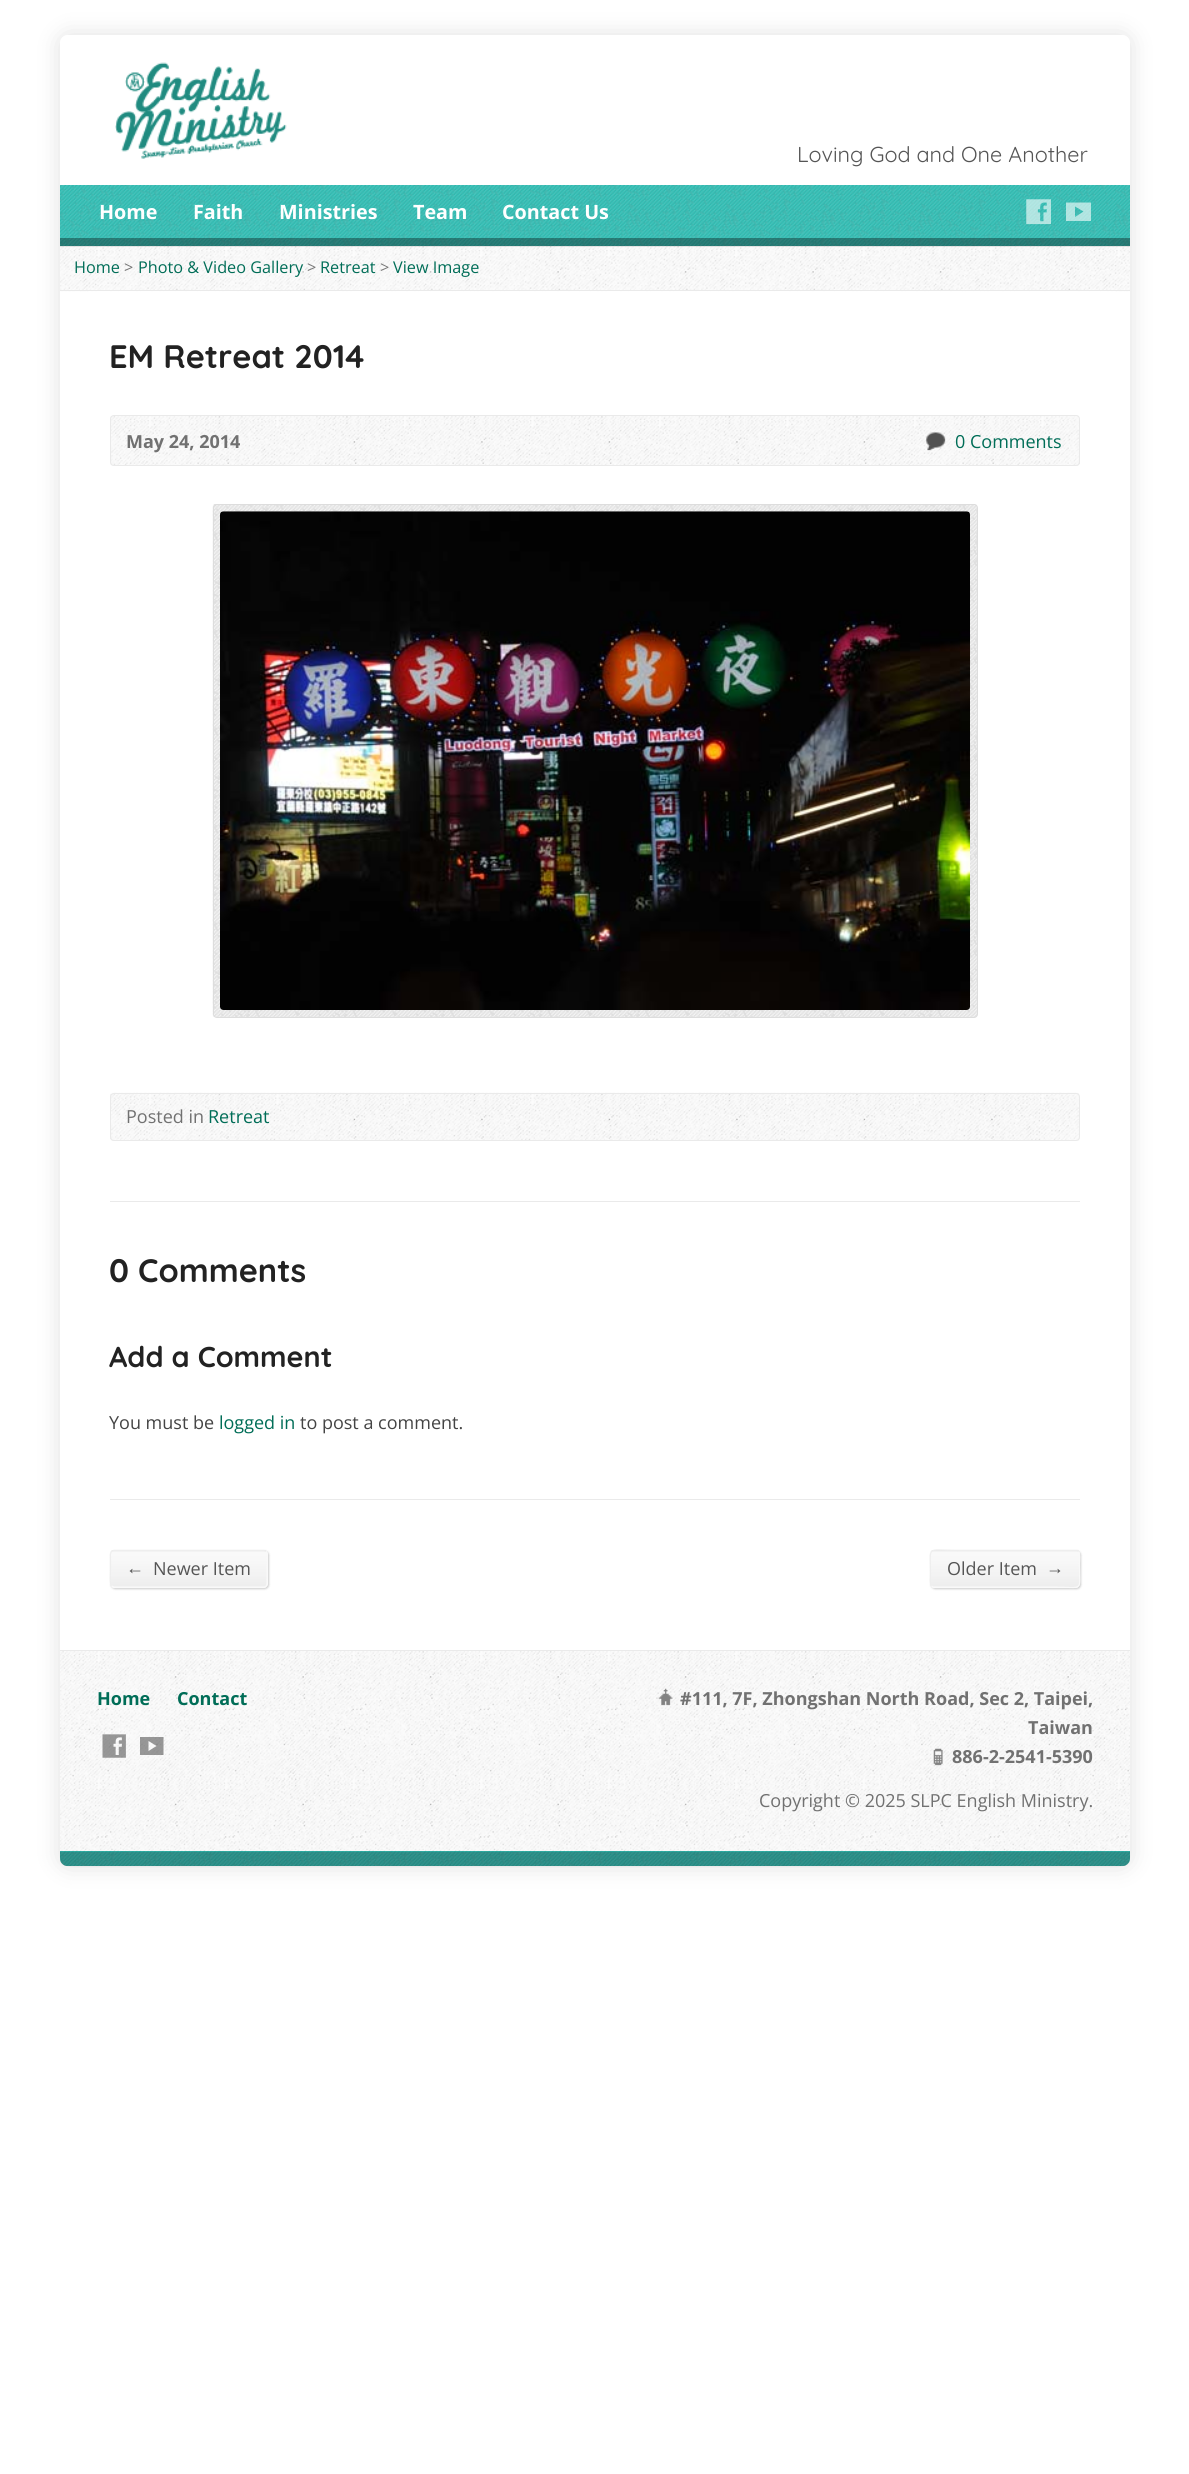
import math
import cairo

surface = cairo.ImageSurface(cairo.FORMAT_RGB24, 1189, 2474)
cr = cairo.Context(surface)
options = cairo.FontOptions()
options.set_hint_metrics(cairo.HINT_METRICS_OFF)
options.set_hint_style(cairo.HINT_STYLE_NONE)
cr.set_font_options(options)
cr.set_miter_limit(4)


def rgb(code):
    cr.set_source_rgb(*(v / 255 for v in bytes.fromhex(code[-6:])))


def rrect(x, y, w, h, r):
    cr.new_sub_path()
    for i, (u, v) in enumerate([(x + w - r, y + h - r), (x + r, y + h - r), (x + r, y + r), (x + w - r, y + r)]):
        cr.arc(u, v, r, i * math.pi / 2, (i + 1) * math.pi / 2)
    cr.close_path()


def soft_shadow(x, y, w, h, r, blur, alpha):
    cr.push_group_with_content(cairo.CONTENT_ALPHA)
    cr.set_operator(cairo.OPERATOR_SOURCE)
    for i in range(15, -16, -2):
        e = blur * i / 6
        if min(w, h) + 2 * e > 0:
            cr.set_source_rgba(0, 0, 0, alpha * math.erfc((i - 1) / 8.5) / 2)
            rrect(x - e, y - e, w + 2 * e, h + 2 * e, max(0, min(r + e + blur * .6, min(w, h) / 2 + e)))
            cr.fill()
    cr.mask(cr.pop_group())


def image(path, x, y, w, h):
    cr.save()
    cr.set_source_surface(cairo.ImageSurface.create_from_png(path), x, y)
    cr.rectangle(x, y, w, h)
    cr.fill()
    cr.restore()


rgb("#ffffff")
cr.paint()
cr.save()
cr.set_fill_rule(cairo.FILL_RULE_EVEN_ODD)
cr.new_path()
cr.move_to(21, 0)
cr.line_to(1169, 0)
cr.line_to(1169, 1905)
cr.line_to(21, 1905)
cr.close_path()
cr.move_to(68, 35)
cr.line_to(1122, 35)
cr.curve_to(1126.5, 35, 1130, 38.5, 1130, 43)
cr.line_to(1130, 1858)
cr.curve_to(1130, 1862.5, 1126.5, 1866, 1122, 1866)
cr.line_to(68, 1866)
cr.curve_to(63.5, 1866, 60, 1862.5, 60, 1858)
cr.line_to(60, 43)
cr.curve_to(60, 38.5, 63.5, 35, 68, 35)
cr.close_path()
cr.clip()
rgb("#000000")
soft_shadow(60, 35, 1070, 1831, 8, 12.5, 0.12)
cr.restore()
image("img/1.png", 115, 62, 172, 97)
rgb("#2ac9be")
cr.rectangle(60, 185, 1070, 61)
cr.fill()
image("img/2.png", 60, 185, 1070, 62)
image("img/3.png", 1026, 199, 25, 26)
cr.set_source_rgba(1, 1, 1, 0.6)
cr.new_path()
cr.move_to(1091, 221)
cr.line_to(1066, 221)
cr.line_to(1066, 202.5)
cr.line_to(1091, 202.5)
cr.close_path()
cr.move_to(1075, 217)
cr.line_to(1083.5, 211.5)
cr.line_to(1075, 206.5)
cr.close_path()
cr.fill()
cr.set_source_rgba(0, 0, 0, 0.35)
cr.rectangle(60, 238, 1070, 9)
cr.fill()
image("img/4.png", 60, 246, 1070, 46)
rgb("#eaeaea")
cr.rectangle(60, 290, 1070, 1)
cr.fill()
cr.set_source_rgba(1, 1, 1, 0.8)
cr.rectangle(88, 291, 1028, 1)
cr.fill()
image("img/5.png", 110, 415, 970, 51)
rrect(110.5, 415.5, 969, 50, 3.5)
rgb("#eaeaea")
cr.set_line_width(1)
cr.stroke()
image("img/6.png", 926, 432, 20, 19)
image("img/7.png", 212, 504, 766, 514)
rrect(213.5, 504.5, 764, 513, 3.5)
rgb("#dddddd")
cr.stroke()
image("img/8.png", 220, 511, 750, 499)
image("img/9.png", 110, 1092, 970, 49)
rrect(110.5, 1093.5, 969, 47, 3.5)
rgb("#eaeaea")
cr.stroke()
cr.rectangle(110, 1201, 970, 1)
cr.fill()
cr.rectangle(110, 1499, 970, 1)
cr.fill()
rgb("#000000")
soft_shadow(111, 1551, 158, 38, 4, 1, 0.2)
rgb("#f9f9f9")
rrect(110, 1550, 158, 38, 4)
cr.fill()
image("img/10.png", 110, 1550, 157, 37)
cr.new_path()
cr.move_to(266, 1551.5)
cr.curve_to(268, 1553.5, 267, 1565.5, 267, 1569)
cr.line_to(267, 1579)
cr.curve_to(267, 1581, 268, 1587, 264, 1587)
cr.line_to(114, 1587)
cr.line_to(111.5, 1586)
cr.set_line_width(1.2)
cr.stroke()
cr.new_path()
cr.move_to(111.5, 1586)
cr.curve_to(109.5, 1584, 110.5, 1572, 110.5, 1569)
cr.line_to(110.5, 1559)
cr.curve_to(110.5, 1556.5, 109.5, 1550.5, 114, 1550.5)
cr.line_to(264, 1550.5)
cr.line_to(266, 1551.5)
rgb("#eeeeee")
cr.stroke()
rgb("#000000")
soft_shadow(931, 1551, 150, 38, 4, 1, 0.2)
rgb("#f9f9f9")
rrect(930, 1550, 150, 38, 4)
cr.fill()
image("img/11.png", 930, 1550, 150, 37)
cr.new_path()
cr.move_to(1078.5, 1551.5)
cr.curve_to(1080.5, 1554, 1079.5, 1561, 1079.5, 1564)
cr.curve_to(1079.5, 1593, 1084.5, 1587, 1052.5, 1587)
cr.line_to(933, 1587)
cr.line_to(931.5, 1586)
cr.stroke()
cr.new_path()
cr.move_to(931.5, 1586)
cr.curve_to(929.5, 1583.5, 930.5, 1576.5, 930.5, 1574)
cr.curve_to(930.5, 1544.5, 925.5, 1550.5, 957.5, 1550.5)
cr.line_to(1077, 1550.5)
cr.line_to(1078.5, 1551.5)
rgb("#eeeeee")
cr.stroke()
image("img/12.png", 60, 1651, 1070, 200)
rgb("#eaeaea")
cr.rectangle(60, 1650, 1070, 1)
cr.fill()
image("img/13.png", 102, 1734, 24, 24)
cr.set_source_rgba(0.333, 0.333, 0.333, 0.6)
cr.new_path()
cr.move_to(163.5, 1755)
cr.line_to(140, 1755)
cr.line_to(140, 1737)
cr.line_to(163.5, 1737)
cr.close_path()
cr.move_to(148.5, 1751)
cr.line_to(156.5, 1746)
cr.line_to(148.5, 1741)
cr.close_path()
cr.fill()
image("img/14.png", 658, 1688, 15, 18)
image("img/15.png", 933, 1748, 10, 18)
rgb("#2ac9be")
cr.new_path()
cr.move_to(60, 1851)
cr.line_to(1130, 1851)
cr.line_to(1130, 1858.5)
cr.curve_to(1130, 1862.5, 1126.5, 1866, 1122.5, 1866)
cr.line_to(67.5, 1866)
cr.curve_to(63.5, 1866, 60, 1862.5, 60, 1858.5)
cr.close_path()
cr.fill()
image("img/16.png", 60, 1851, 1070, 16)
cr.select_font_face("Quicksand")
cr.set_font_size(21.6)
rgb("#555555")
cr.move_to(797, 162)
cr.show_text("Loving God and One Another")
cr.select_font_face("Open Sans", cairo.FONT_SLANT_NORMAL, cairo.FONT_WEIGHT_BOLD)
cr.set_font_size(19.75)
rgb("#ffffff")
for x, y, s in [
    (99, 219, "Home"),
    (193, 219, "Faith"),
    (279, 219, "Ministries"),
    (413, 219, "Team"),
    (502, 219, "Contact Us"),
]:
    cr.move_to(x, y)
    cr.show_text(s)
cr.select_font_face("Open Sans")
cr.set_font_size(16.25)
rgb("#006d57")
cr.move_to(74, 273)
cr.show_text("Home")
rgb("#777777")
cr.move_to(124, 273)
cr.show_text(">")
rgb("#006d57")
cr.move_to(138, 273)
cr.show_text("Photo & Video Gallery")
rgb("#777777")
cr.move_to(307, 273)
cr.show_text(">")
rgb("#006d57")
cr.move_to(320, 273)
cr.show_text("Retreat")
rgb("#777777")
cr.move_to(380, 273)
cr.show_text(">")
rgb("#006d57")
cr.move_to(393, 273)
cr.show_text("View Image")
cr.select_font_face("Quicksand", cairo.FONT_SLANT_NORMAL, cairo.FONT_WEIGHT_BOLD)
cr.set_font_size(32.5)
rgb("#222222")
cr.move_to(109, 368)
cr.show_text("EM Retreat 2014")
cr.select_font_face("Open Sans", cairo.FONT_SLANT_NORMAL, cairo.FONT_WEIGHT_BOLD)
cr.set_font_size(18)
rgb("#717171")
cr.move_to(126, 448)
cr.show_text("May 24, 2014")
cr.select_font_face("Open Sans")
rgb("#006d57")
cr.move_to(955, 448)
cr.show_text("0 Comments")
rgb("#717171")
cr.move_to(126, 1123)
cr.show_text("Posted in")
rgb("#006d57")
cr.move_to(208, 1123)
cr.show_text("Retreat")
cr.select_font_face("Quicksand", cairo.FONT_SLANT_NORMAL, cairo.FONT_WEIGHT_BOLD)
cr.set_font_size(32.5)
rgb("#222222")
cr.move_to(109, 1282)
cr.show_text("0 Comments")
cr.set_font_size(28.75)
cr.move_to(109, 1367)
cr.show_text("Add a Comment")
cr.select_font_face("Open Sans")
cr.set_font_size(18)
rgb("#444444")
cr.move_to(109, 1429)
cr.show_text("You must be")
rgb("#006d57")
cr.move_to(219, 1429)
cr.show_text("logged in")
rgb("#444444")
cr.move_to(300, 1429)
cr.show_text("to post a comment.")
cr.select_font_face("Liberation Sans")
rgb("#555555")
cr.move_to(126, 1574)
cr.show_text("←")
cr.select_font_face("Open Sans")
cr.move_to(153, 1575)
cr.show_text("Newer Item")
cr.move_to(947, 1575)
cr.show_text("Older Item")
cr.select_font_face("Liberation Sans")
cr.move_to(1046, 1574)
cr.show_text("→")
cr.select_font_face("Open Sans", cairo.FONT_SLANT_NORMAL, cairo.FONT_WEIGHT_BOLD)
rgb("#006d57")
cr.move_to(97, 1705)
cr.show_text("Home")
cr.move_to(177, 1705)
cr.show_text("Contact")
rgb("#717171")
for x, y, s in [
    (680, 1705, "#111, 7F, Zhongshan North Road, Sec 2, Taipei,"),
    (1028, 1734, "Taiwan"),
    (952, 1763, "886-2-2541-5390"),
]:
    cr.move_to(x, y)
    cr.show_text(s)
cr.select_font_face("Open Sans")
cr.move_to(759, 1807)
cr.show_text("Copyright © 2025 SLPC English Ministry.")
surface.write_to_png("page.png")
